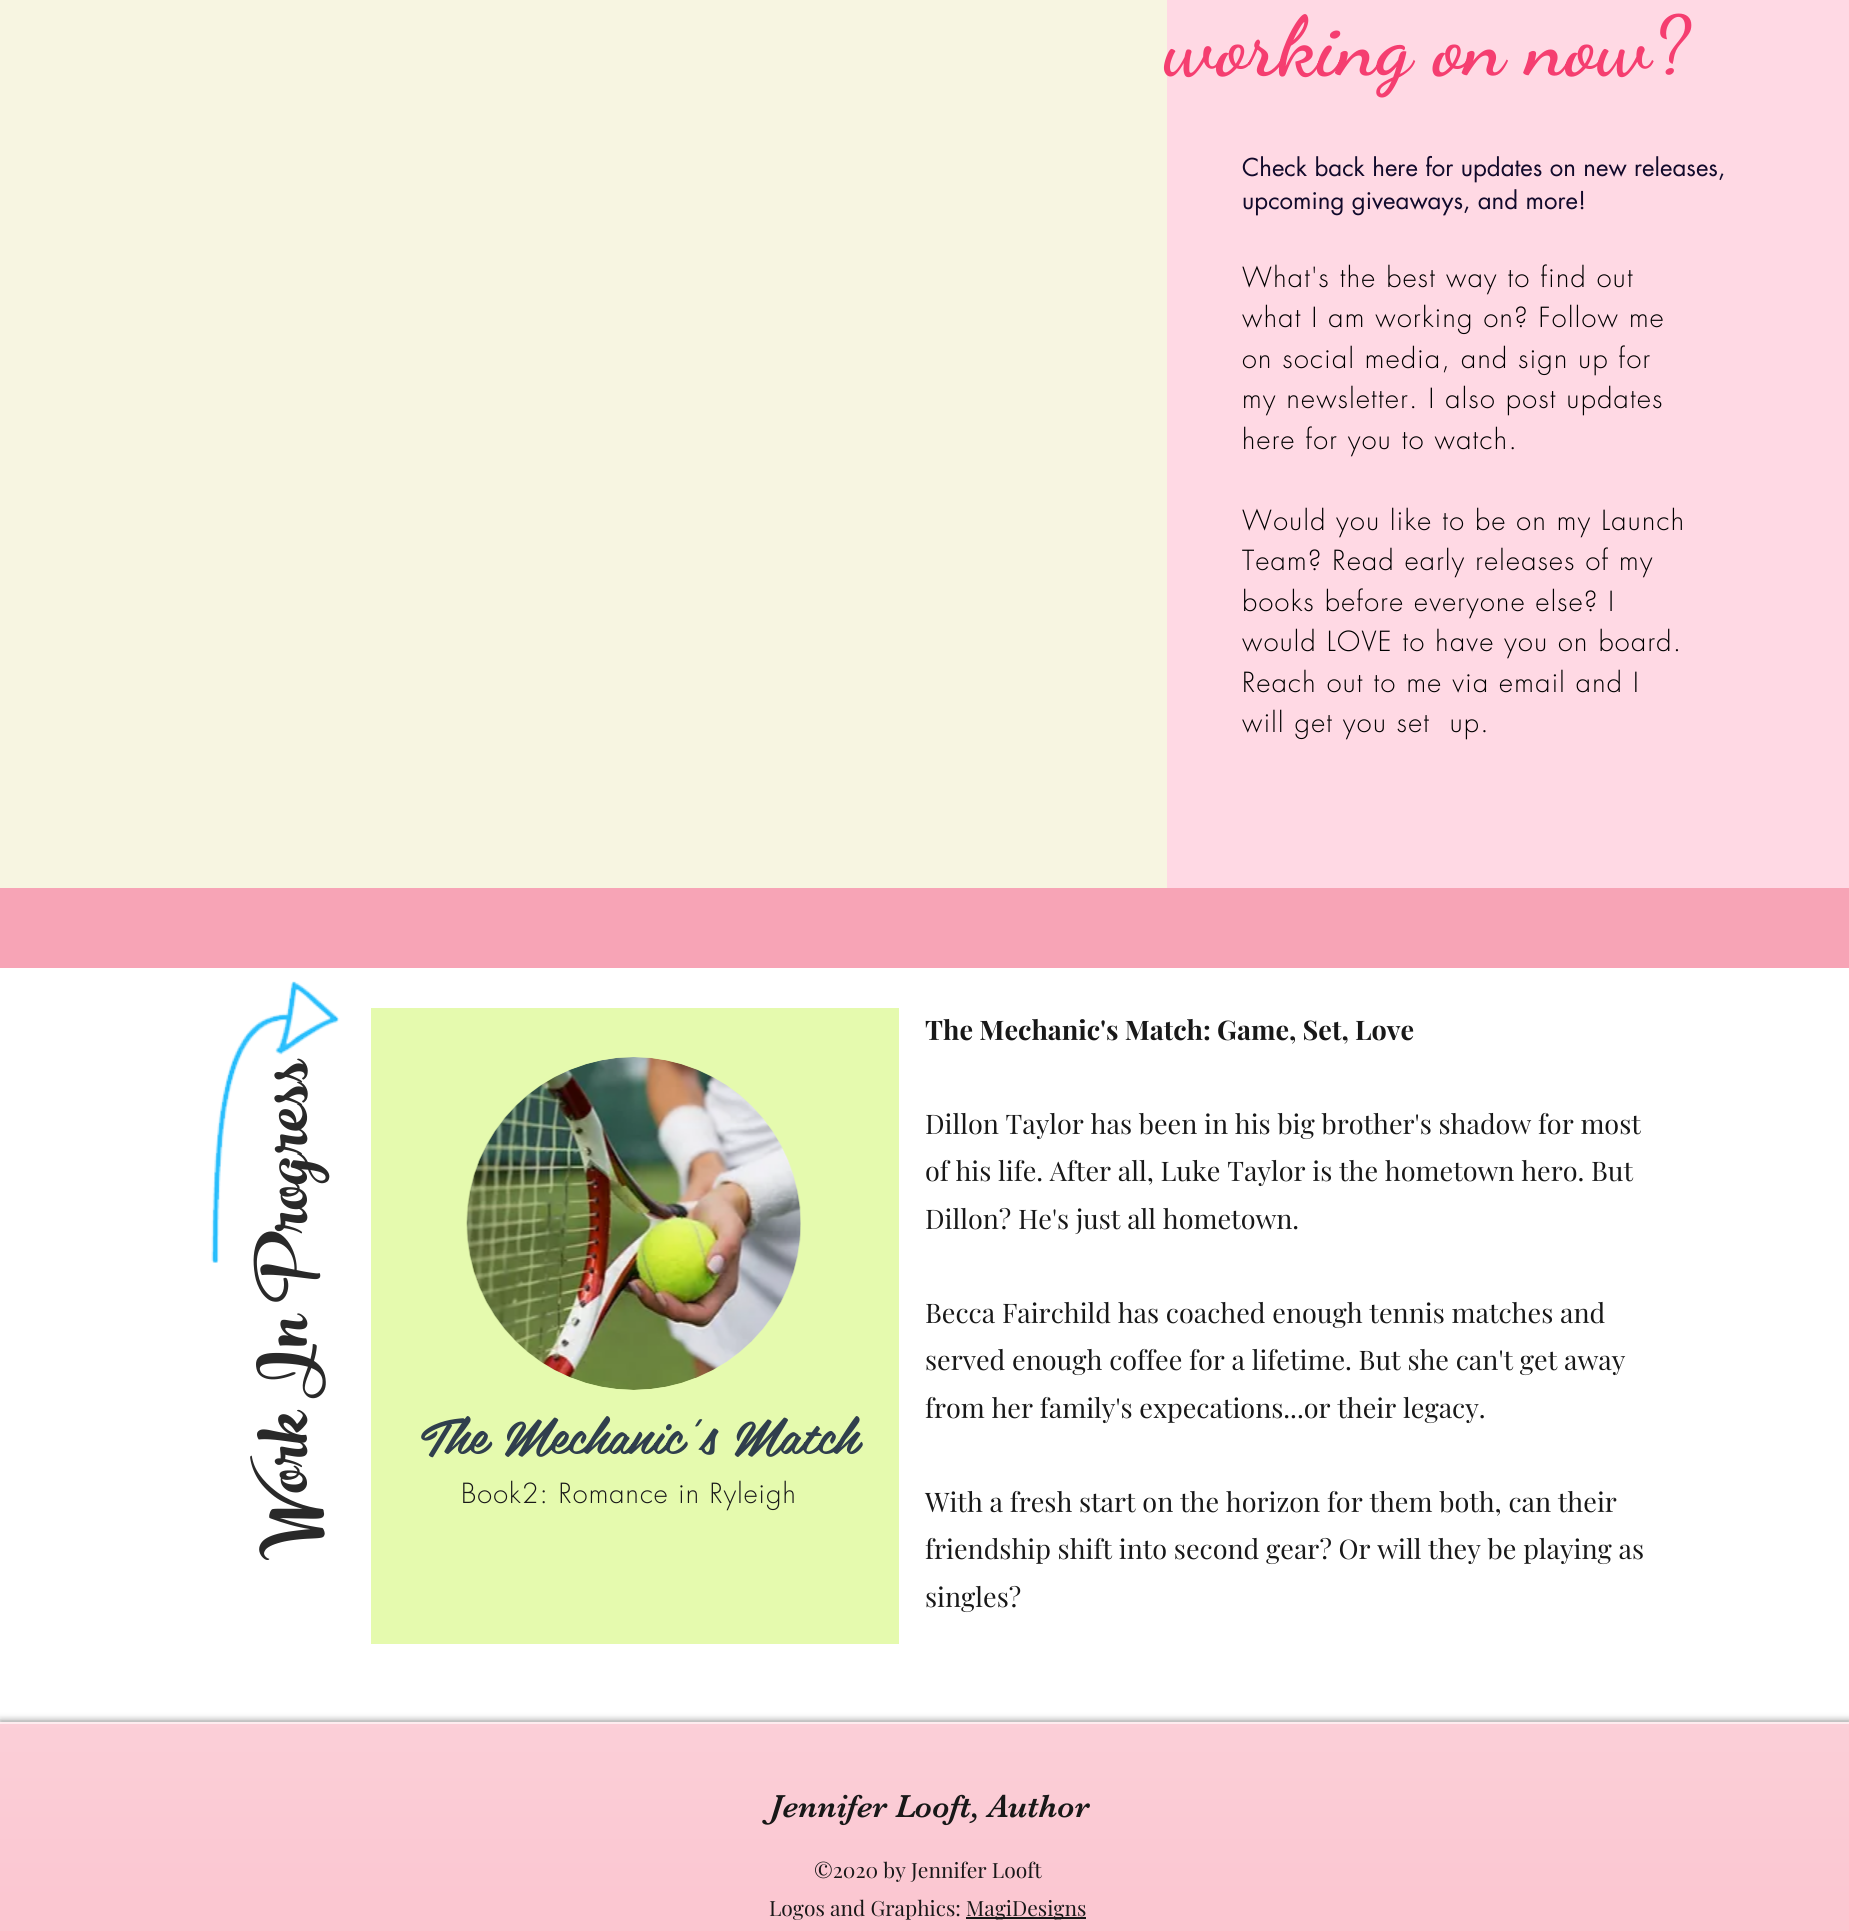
import math
import cairo

surface = cairo.ImageSurface(cairo.FORMAT_RGB24, 1849, 1931)
cr = cairo.Context(surface)
options = cairo.FontOptions()
options.set_hint_metrics(cairo.HINT_METRICS_OFF)
options.set_hint_style(cairo.HINT_STYLE_NONE)
cr.set_font_options(options)
cr.set_miter_limit(4)


def rgb(code):
    cr.set_source_rgb(*(v / 255 for v in bytes.fromhex(code[-6:])))


def tracked(x, y, s, letter, word):
    cr.move_to(x, y)
    for ch in s:
        cr.show_text(ch)
        cr.rel_move_to(letter + word * (ch == ' '), 0)


def rrect(x, y, w, h, r):
    cr.new_sub_path()
    for i, (u, v) in enumerate([(x + w - r, y + h - r), (x + r, y + h - r), (x + r, y + r), (x + w - r, y + r)]):
        cr.arc(u, v, r, i * math.pi / 2, (i + 1) * math.pi / 2)
    cr.close_path()


def soft_shadow(x, y, w, h, r, blur, alpha):
    cr.push_group_with_content(cairo.CONTENT_ALPHA)
    cr.set_operator(cairo.OPERATOR_SOURCE)
    for i in range(15, -16, -2):
        e = blur * i / 6
        if min(w, h) + 2 * e > 0:
            cr.set_source_rgba(0, 0, 0, alpha * math.erfc((i - 1) / 8.5) / 2)
            rrect(x - e, y - e, w + 2 * e, h + 2 * e, max(0, min(r + e + blur * .6, min(w, h) / 2 + e)))
            cr.fill()
    cr.mask(cr.pop_group())


def image(path, x, y, w, h):
    cr.save()
    cr.set_source_surface(cairo.ImageSurface.create_from_png(path), x, y)
    cr.rectangle(x, y, w, h)
    cr.fill()
    cr.restore()


rgb("#ffffff")
cr.paint()
for x, y, w, h, color in [
    (0, 0, 1167, 888, "#f7f5e1"),
    (1167, 0, 682, 888, "#ffd9e4"),
    (0, 888, 1849, 80, "#f7a4b6"),
    (371, 1008, 528, 636, "#e5faae"),
]:
    rgb(color)
    cr.rectangle(x, y, w, h)
    cr.fill()
image("img/2.png", 466, 1057, 335, 333)
rgb("#000000")
soft_shadow(0, 1722, 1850, 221, 0, 4, 0.6)
rgb("#fabeca")
cr.rectangle(0, 1724, 1849, 207)
cr.fill()
image("img/3.png", 0, 1721, 1849, 210)
rgb("#feecef")
cr.rectangle(0, 1722, 1849, 2)
cr.fill()
rgb("#181818")
cr.rectangle(966, 1917, 120, 2)
cr.fill()
cr.select_font_face("Dancing Script", cairo.FONT_SLANT_NORMAL, cairo.FONT_WEIGHT_BOLD)
cr.set_font_size(84)
rgb("#f53e70")
cr.move_to(1164, 74)
cr.show_text("working on now?")
cr.select_font_face("futura")
cr.set_font_size(24)
rgb("#110a2b")
cr.move_to(1242, 176)
cr.show_text("Check back here for updates on new releases,")
cr.move_to(1242, 209)
cr.show_text("upcoming giveaways, and more!")
cr.select_font_face("futura Light")
cr.set_font_size(27)
rgb("#000000")
for x, y, s in [
    (1242, 287, "What's the best way to find out"),
    (1242, 327, "what I am working on? Follow me"),
    (1242, 368, "on social media, and sign up for"),
    (1242, 408, "my newsletter. I also post updates"),
    (1242, 449, "here for you to watch."),
    (1242, 530, "Would you like to be on my Launch"),
    (1242, 570, "Team? Read early releases of my"),
    (1242, 611, "books before everyone else? I"),
    (1242, 651, "would LOVE to have you on board."),
    (1242, 692, "Reach out to me via email and I"),
    (1242, 732, "will get you set  up."),
]:
    tracked(x, y, s, 1.35, 0)
cr.select_font_face("Playfair Display", cairo.FONT_SLANT_NORMAL, cairo.FONT_WEIGHT_BOLD)
rgb("#181818")
cr.move_to(925, 1040)
cr.show_text("The Mechanic's Match: Game, Set, Love")
cr.select_font_face("Playfair Display")
for x, y, s in [
    (925, 1134, "Dillon Taylor has been in his big brother's shadow for most"),
    (925, 1181, "of his life. After all, Luke Taylor is the hometown hero. But"),
    (925, 1229, "Dillon? He's just all hometown."),
    (925, 1323, "Becca Fairchild has coached enough tennis matches and"),
    (925, 1370, "served enough coffee for a lifetime. But she can't get away"),
    (925, 1418, "from her family's expecations...or their legacy."),
    (925, 1512, "With a fresh start on the horizon for them both, can their"),
    (925, 1559, "friendship shift into second gear? Or will they be playing as"),
    (925, 1607, "singles?"),
]:
    cr.move_to(x, y)
    cr.show_text(s)
cr.select_font_face("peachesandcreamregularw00")
cr.set_font_size(105)
rgb("#292929")
cr.save()
cr.translate(307, 1560)
cr.rotate(-90 * math.pi / 180)
tracked(0, 0, "Work In Progress", 1, 0)
cr.restore()
image("img/1.png", 211, 981, 129, 282)
cr.select_font_face("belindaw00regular")
cr.set_font_size(51)
rgb("#303f4d")
cr.move_to(421, 1454)
cr.show_text("The Mechanic's Match")
cr.select_font_face("futura Light")
cr.set_font_size(27)
rgb("#181818")
tracked(461, 1503, "Book2: Romance in Ryleigh", 1.1, 0)
cr.select_font_face("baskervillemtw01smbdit")
cr.set_font_size(33)
cr.move_to(770, 1817)
cr.show_text("Jennifer Looft, Author")
cr.select_font_face("Playfair Display")
cr.set_font_size(21)
for x, y, s in [
    (814, 1878, "©2020 by Jennifer Looft"),
    (769, 1916, "Logos and Graphics:"),
    (966, 1916, "MagiDesigns"),
]:
    cr.move_to(x, y)
    cr.show_text(s)
surface.write_to_png("page.png")
